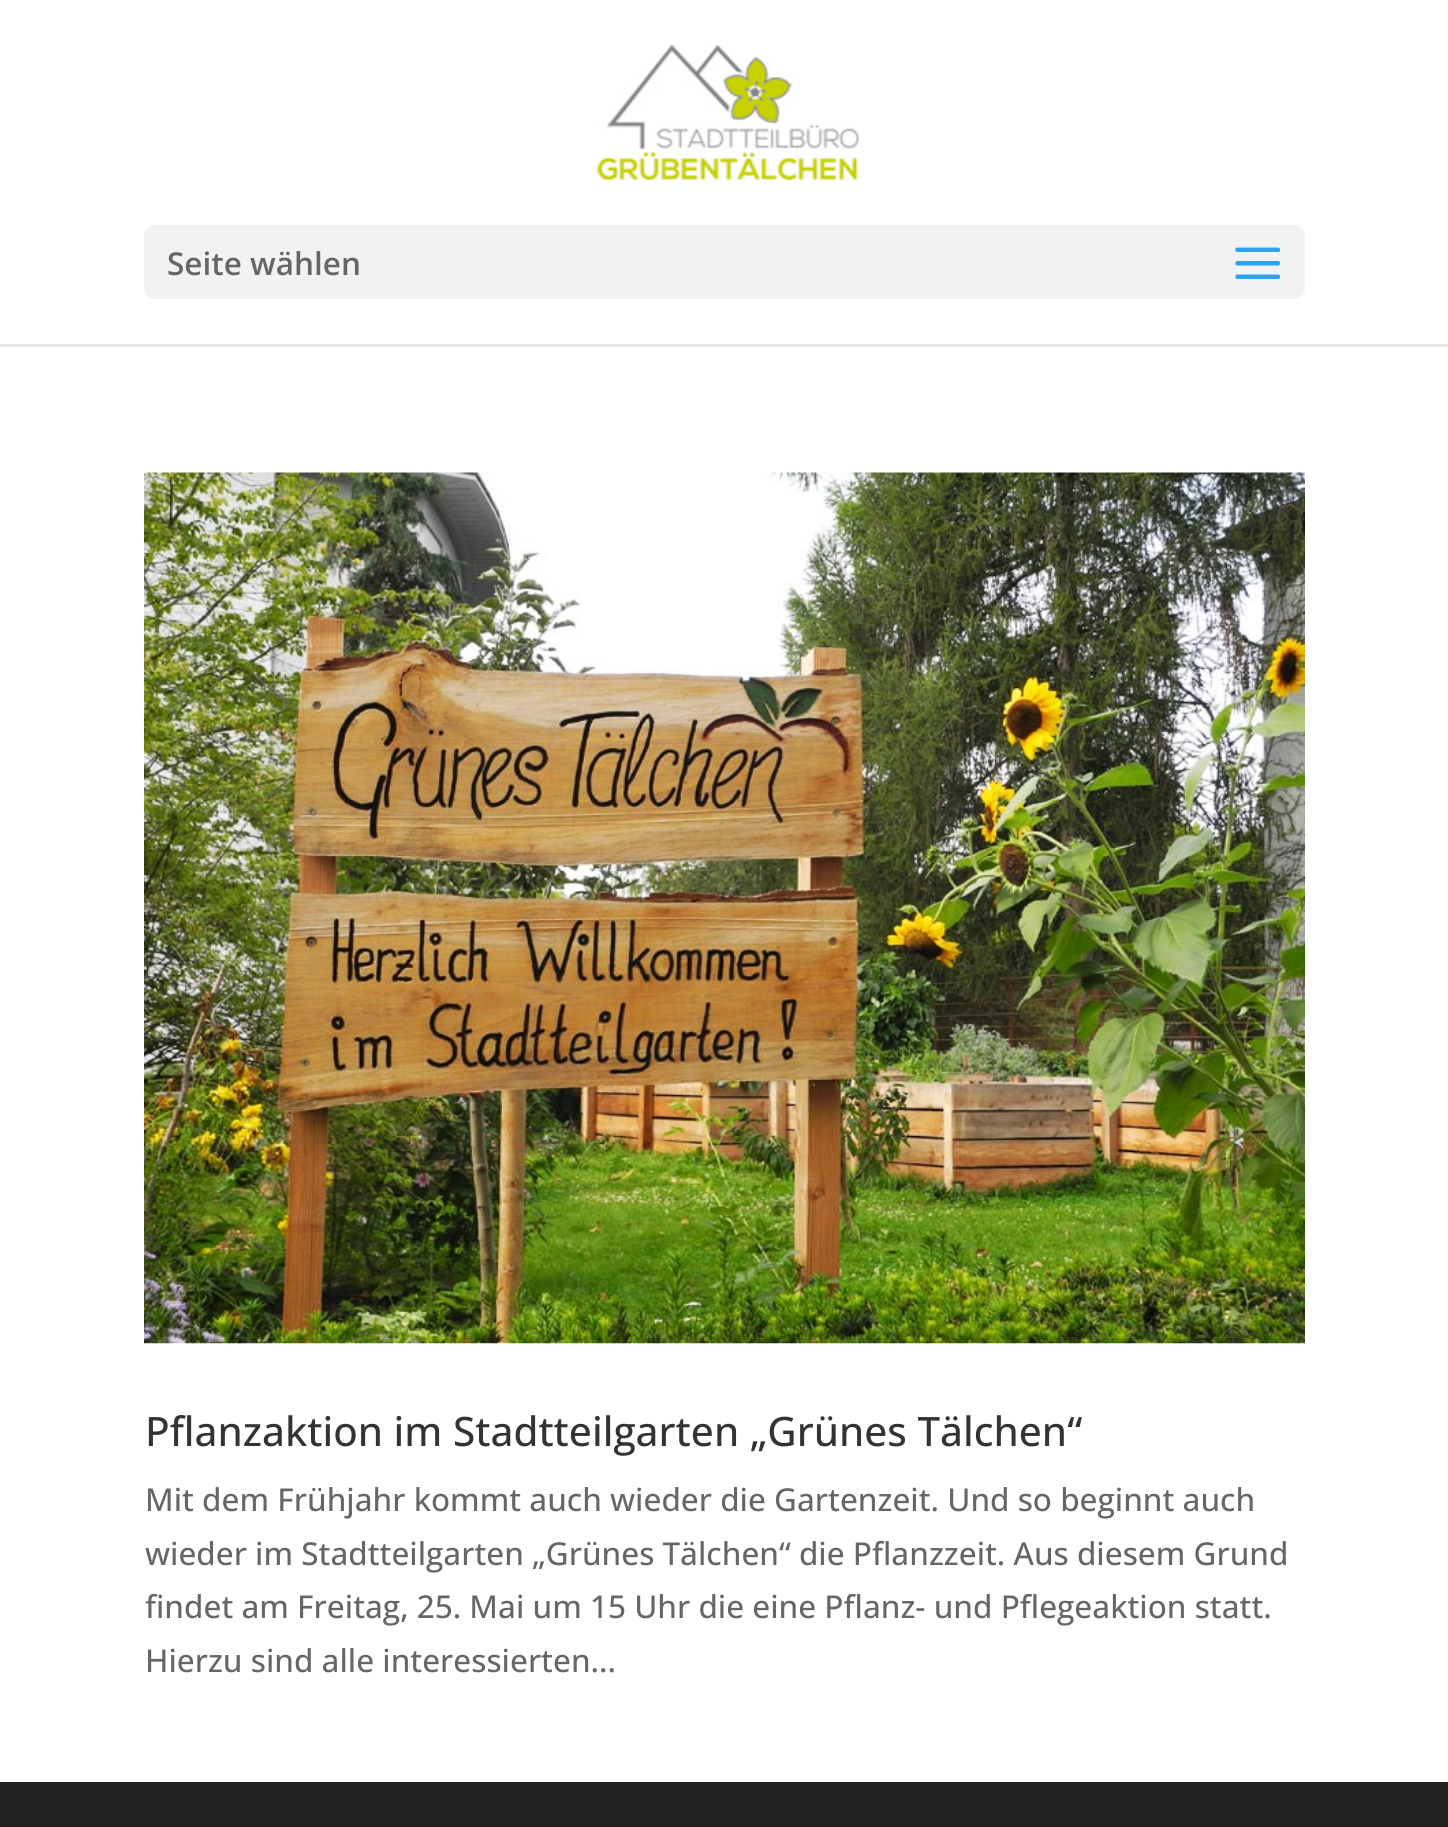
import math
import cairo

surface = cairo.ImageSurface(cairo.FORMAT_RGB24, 1448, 1827)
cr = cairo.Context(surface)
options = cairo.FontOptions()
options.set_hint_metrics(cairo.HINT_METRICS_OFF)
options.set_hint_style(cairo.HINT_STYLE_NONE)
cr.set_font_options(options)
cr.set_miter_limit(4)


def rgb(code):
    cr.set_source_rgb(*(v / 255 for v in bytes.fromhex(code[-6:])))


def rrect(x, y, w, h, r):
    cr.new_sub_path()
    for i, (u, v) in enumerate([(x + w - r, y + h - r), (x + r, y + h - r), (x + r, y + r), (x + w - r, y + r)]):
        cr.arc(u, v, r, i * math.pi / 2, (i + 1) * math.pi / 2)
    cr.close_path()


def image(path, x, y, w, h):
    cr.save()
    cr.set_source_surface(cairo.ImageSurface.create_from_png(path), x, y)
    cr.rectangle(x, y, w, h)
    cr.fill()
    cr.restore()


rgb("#ffffff")
cr.paint()
rgb("#e6e6e6")
cr.rectangle(0, 344, 1448, 3)
cr.fill()
image("img/1.png", 596, 45, 264, 135)
rgb("#f2f2f2")
rrect(144, 225, 1161, 74, 11)
cr.fill()
image("img/2.png", 1235, 247, 46, 32)
image("img/3.png", 144, 472, 1161, 872)
rgb("#222222")
cr.rectangle(0, 1782, 1448, 45)
cr.fill()
cr.select_font_face("Open Sans SemiBold")
cr.set_font_size(31.5)
rgb("#666666")
cr.move_to(167, 275)
cr.show_text("Seite wählen")
cr.select_font_face("Open Sans Medium")
cr.set_font_size(40.5)
rgb("#333333")
cr.move_to(145, 1446)
cr.show_text("Pflanzaktion im Stadtteilgarten „Grünes Tälchen“")
cr.set_font_size(31.5)
rgb("#666666")
for x, y, s in [
    (145, 1511, "Mit dem Frühjahr kommt auch wieder die Gartenzeit. Und so beginnt auch"),
    (145, 1565, "wieder im Stadtteilgarten „Grünes Tälchen“ die Pflanzzeit. Aus diesem Grund"),
    (145, 1618, "findet am Freitag, 25. Mai um 15 Uhr die eine Pflanz- und Pflegeaktion statt."),
    (145, 1672, "Hierzu sind alle interessierten..."),
]:
    cr.move_to(x, y)
    cr.show_text(s)
surface.write_to_png("page.png")
